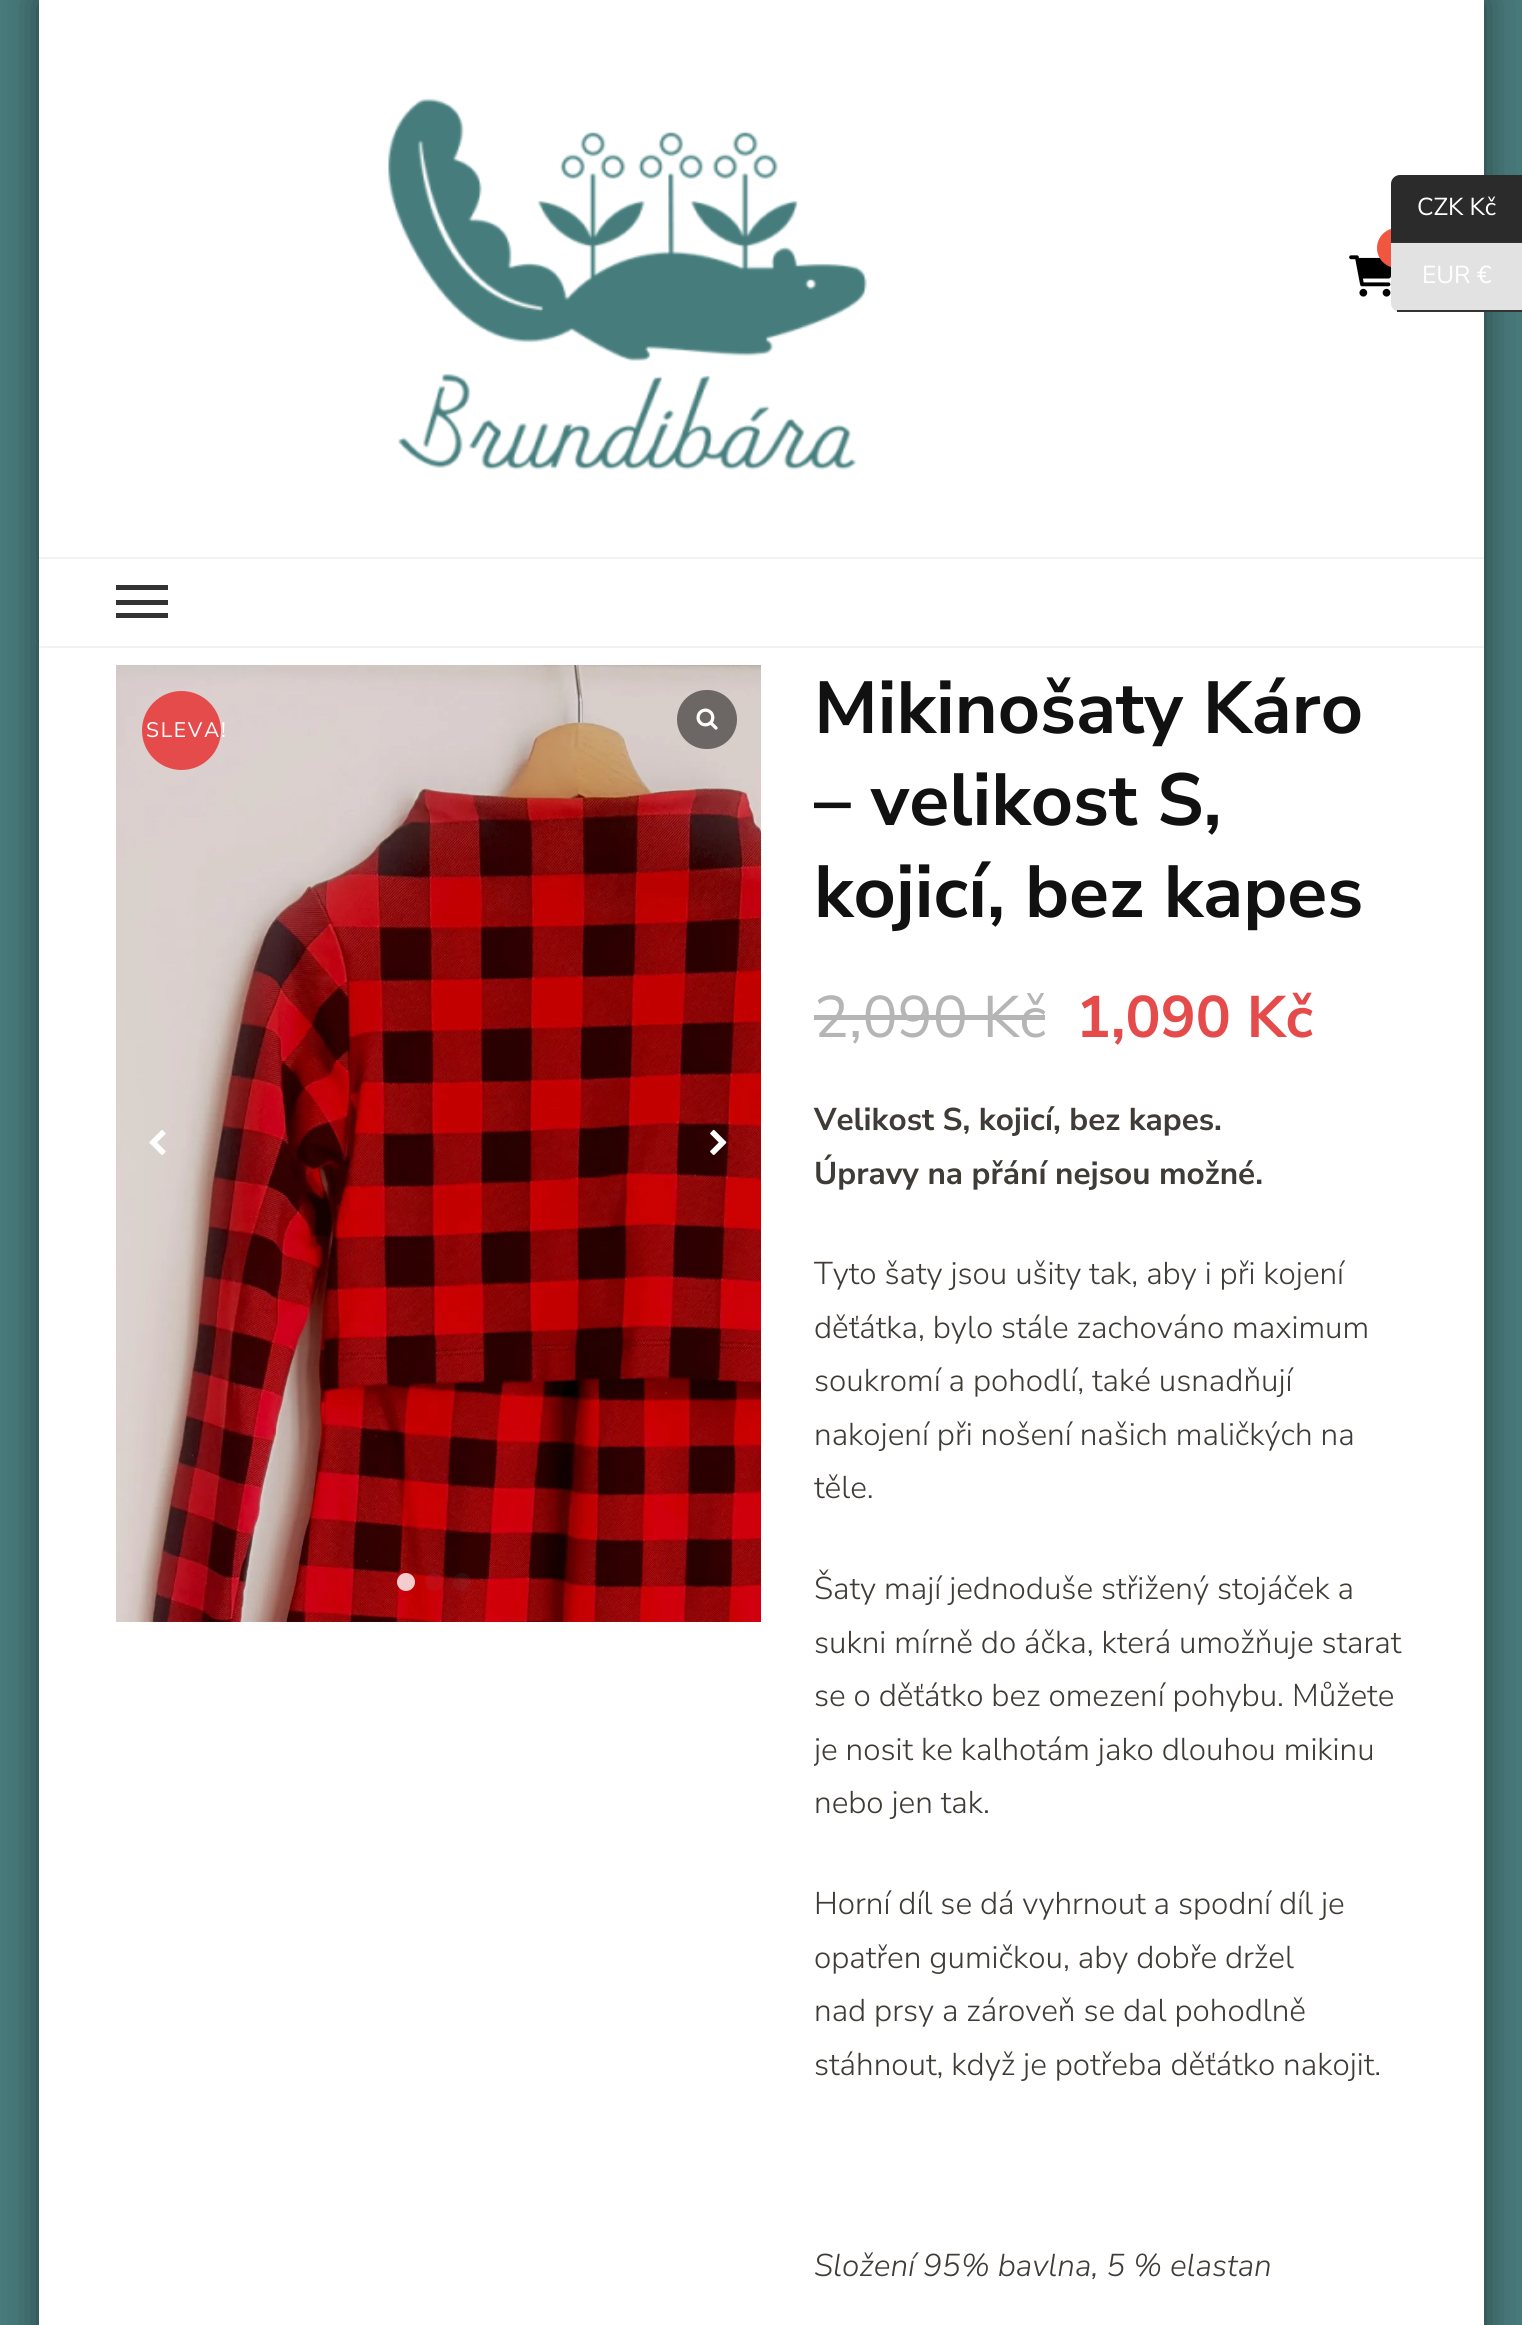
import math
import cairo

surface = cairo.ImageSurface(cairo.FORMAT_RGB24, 1522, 2325)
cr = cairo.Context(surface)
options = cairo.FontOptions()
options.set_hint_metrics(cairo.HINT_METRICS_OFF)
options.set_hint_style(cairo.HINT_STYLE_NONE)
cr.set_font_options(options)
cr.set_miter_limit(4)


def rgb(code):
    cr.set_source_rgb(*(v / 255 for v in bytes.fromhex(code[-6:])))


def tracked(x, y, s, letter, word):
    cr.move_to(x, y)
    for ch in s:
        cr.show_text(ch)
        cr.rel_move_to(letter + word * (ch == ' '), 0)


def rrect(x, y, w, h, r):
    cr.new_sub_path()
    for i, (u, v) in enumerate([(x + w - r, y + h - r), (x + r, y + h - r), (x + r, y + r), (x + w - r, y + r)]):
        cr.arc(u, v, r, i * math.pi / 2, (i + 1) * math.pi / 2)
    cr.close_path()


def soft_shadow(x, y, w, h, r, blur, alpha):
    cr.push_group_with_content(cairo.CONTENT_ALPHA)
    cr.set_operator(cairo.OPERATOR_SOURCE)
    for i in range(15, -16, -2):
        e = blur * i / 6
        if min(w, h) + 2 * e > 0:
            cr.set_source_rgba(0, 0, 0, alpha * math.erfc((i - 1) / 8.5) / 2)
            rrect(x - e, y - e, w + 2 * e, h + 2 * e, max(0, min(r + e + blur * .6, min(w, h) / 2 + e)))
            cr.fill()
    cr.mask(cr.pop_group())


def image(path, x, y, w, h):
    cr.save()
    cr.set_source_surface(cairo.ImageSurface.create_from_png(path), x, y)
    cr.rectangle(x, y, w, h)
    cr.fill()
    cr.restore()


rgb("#487a7b")
cr.paint()
rgb("#000000")
soft_shadow(39, 0, 1445, 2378, 0, 17.5, 0.5)
rgb("#ffffff")
cr.rectangle(39, 0, 1445, 2325)
cr.fill()
image("img/2.png", 1349, 255, 42, 42)
rgb("#f15641")
rrect(1377, 228, 41, 40, 20)
cr.fill()
rgb("#2b2b2b")
cr.new_path()
cr.move_to(1400, 175)
cr.line_to(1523, 175)
cr.line_to(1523, 243)
cr.line_to(1391, 243)
cr.line_to(1391, 184)
cr.curve_to(1391, 179, 1395, 175, 1400, 175)
cr.close_path()
cr.fill()
rgb("#333333")
cr.rectangle(1391, 242, 131, 1)
cr.fill()
rgb("#e2e2e2")
cr.new_path()
cr.move_to(1391, 243)
cr.line_to(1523, 243)
cr.line_to(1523, 312)
cr.line_to(1400, 312)
cr.curve_to(1395, 312, 1391, 308, 1391, 303)
cr.close_path()
cr.fill()
rgb("#333333")
cr.rectangle(1397, 310, 125, 2)
cr.fill()
rgb("#f2f2f2")
cr.rectangle(39, 646, 1445, 2)
cr.fill()
image("img/1.png", 388, 98, 479, 372)
for x, y, w, h, color in [
    (39, 557, 1445, 2, "#f2f2f2"),
    (116, 585, 52, 5, "#333333"),
    (116, 600, 52, 5, "#333333"),
    (116, 613, 52, 5, "#333333"),
]:
    rgb(color)
    cr.rectangle(x, y, w, h)
    cr.fill()
image("img/3.png", 116, 665, 645, 957)
cr.set_source_rgba(0, 0, 0, 0.5)
rrect(677, 690, 60, 59, 29.5)
cr.fill()
image("img/4.png", 696, 708, 22, 22)
image("img/5.png", 149, 1130, 17, 25)
image("img/6.png", 710, 1129, 17, 26)
cr.set_source_rgba(1, 1, 1, 0.8)
cr.arc(406, 1582, 9, 0, 2 * math.pi)
cr.fill()
cr.set_source_rgba(0.451, 0.467, 0.475, 0.1)
cr.arc(434, 1582, 9, 0, 2 * math.pi)
cr.fill()
cr.arc(462, 1582, 9, 0, 2 * math.pi)
cr.fill()
rgb("#b5b5b5")
cr.rectangle(814, 1015, 231, 5)
cr.fill()
rgb("#e54b4b")
cr.arc(181.5, 730.5, 39.5, 0, 2 * math.pi)
cr.fill()
cr.select_font_face("Nunito Sans")
cr.set_font_size(24.5)
rgb("#ffffff")
cr.move_to(1417, 215)
cr.show_text("CZK Kč")
cr.move_to(1422, 283)
cr.show_text("EUR €")
cr.select_font_face("Nunito Sans", cairo.FONT_SLANT_NORMAL, cairo.FONT_WEIGHT_BOLD)
cr.set_font_size(73.5)
rgb("#111111")
cr.move_to(814, 733)
cr.show_text("Mikinošaty Káro")
cr.save()
cr.rectangle(814, 665, 593, 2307)
cr.clip()
cr.move_to(814, 825)
cr.show_text("– velikost S,")
cr.restore()
cr.move_to(814, 917)
cr.show_text("kojicí, bez kapes")
cr.select_font_face("Nunito Sans")
cr.set_font_size(58.5)
rgb("#b5b5b5")
cr.move_to(814, 1037)
cr.show_text("2,090 Kč")
cr.select_font_face("Nunito Sans", cairo.FONT_SLANT_NORMAL, cairo.FONT_WEIGHT_BOLD)
rgb("#e54b4b")
cr.move_to(1076, 1037)
cr.show_text("1,090 Kč")
cr.set_font_size(31.5)
rgb("#3f3b36")
cr.move_to(814, 1130)
cr.show_text("Velikost S, kojicí, bez kapes.")
cr.move_to(814, 1184)
cr.show_text("Úpravy na přání nejsou možné.")
cr.select_font_face("Nunito Sans Light")
for x, y, s in [
    (814, 1284, "Tyto šaty jsou ušity tak, aby i při kojení"),
    (814, 1338, "děťátka, bylo stále zachováno maximum"),
    (814, 1391, "soukromí a pohodlí, také usnadňují"),
    (814, 1445, "nakojení při nošení našich maličkých na"),
    (814, 1498, "těle."),
    (814, 1599, "Šaty mají jednoduše střižený stojáček a"),
    (814, 1653, "sukni mírně do áčka, která umožňuje starat"),
    (814, 1706, "se o děťátko bez omezení pohybu. Můžete"),
]:
    cr.move_to(x, y)
    cr.show_text(s)
cr.save()
cr.rectangle(814, 665, 593, 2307)
cr.clip()
cr.move_to(814, 1760)
cr.show_text("je nosit ke kalhotám jako dlouhou mikinu")
cr.restore()
for x, y, s in [
    (814, 1813, "nebo jen tak."),
    (814, 1914, "Horní díl se dá vyhrnout a spodní díl je"),
    (814, 1968, "opatřen gumičkou, aby dobře držel"),
    (814, 2021, "nad prsy a zároveň se dal pohodlně"),
    (814, 2075, "stáhnout, když je potřeba děťátko nakojit."),
]:
    cr.move_to(x, y)
    cr.show_text(s)
cr.select_font_face("Nunito Sans Light", cairo.FONT_SLANT_ITALIC)
cr.move_to(814, 2276)
cr.show_text("Složení 95% bavlna, 5 % elastan")
cr.select_font_face("Nunito Sans")
cr.set_font_size(21)
rgb("#ffffff")
tracked(146, 737, "SLEVA!", 1.75, 0)
surface.write_to_png("page.png")
